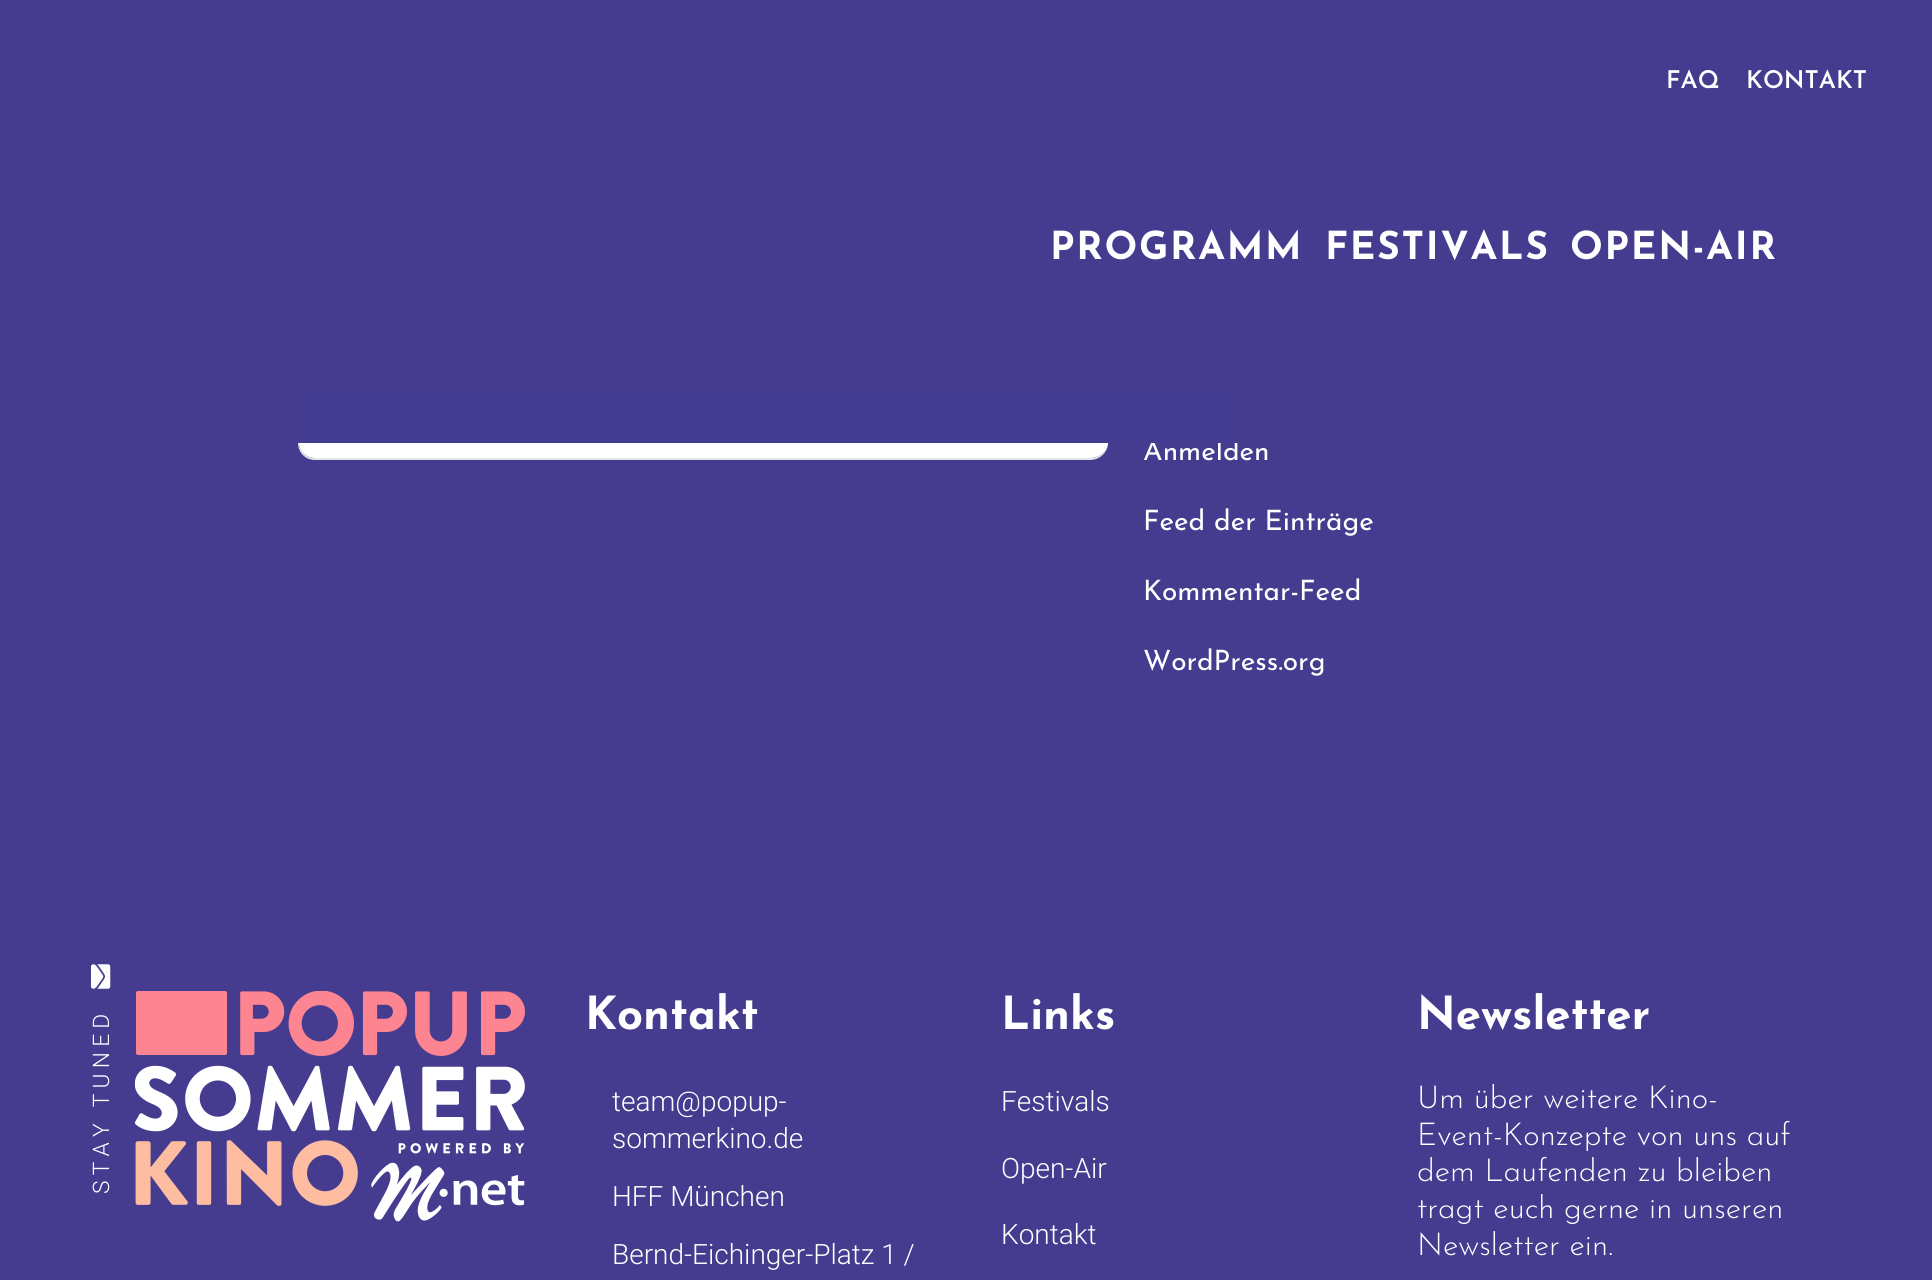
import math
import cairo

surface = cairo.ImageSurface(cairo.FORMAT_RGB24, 1932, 1280)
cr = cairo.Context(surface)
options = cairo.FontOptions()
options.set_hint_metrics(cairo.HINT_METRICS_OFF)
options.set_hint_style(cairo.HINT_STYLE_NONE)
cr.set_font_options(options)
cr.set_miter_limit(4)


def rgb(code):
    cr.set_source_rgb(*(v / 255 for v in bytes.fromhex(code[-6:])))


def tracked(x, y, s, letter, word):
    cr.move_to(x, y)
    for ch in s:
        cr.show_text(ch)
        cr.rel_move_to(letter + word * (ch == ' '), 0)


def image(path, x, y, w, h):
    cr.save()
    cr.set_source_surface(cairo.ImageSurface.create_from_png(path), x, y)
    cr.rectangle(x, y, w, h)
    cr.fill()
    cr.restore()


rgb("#453c90")
cr.paint()
rgb("#e5e5e5")
cr.set_fill_rule(cairo.FILL_RULE_EVEN_ODD)
cr.new_path()
cr.move_to(315, 385)
cr.line_to(1090, 385)
cr.curve_to(1100, 385, 1108, 393, 1108, 402)
cr.line_to(1108, 443)
cr.curve_to(1108, 452, 1100, 460, 1090, 460)
cr.line_to(315, 460)
cr.curve_to(305, 460, 298, 452, 298, 443)
cr.line_to(298, 402)
cr.curve_to(298, 393, 305, 385, 315, 385)
cr.close_path()
cr.move_to(315, 385)
cr.line_to(1090, 385)
cr.curve_to(1100, 385, 1108, 393, 1108, 402)
cr.line_to(1108, 443)
cr.curve_to(1108, 451, 1100, 458, 1090, 458)
cr.line_to(315, 458)
cr.curve_to(306, 458, 299, 451, 299, 443)
cr.line_to(299, 402)
cr.curve_to(299, 393, 306, 385, 315, 385)
cr.close_path()
cr.fill()
rgb("#ffffff")
cr.set_fill_rule(cairo.FILL_RULE_WINDING)
cr.new_path()
cr.move_to(315, 385)
cr.curve_to(306, 385, 299, 393, 299, 402)
cr.line_to(299, 443)
cr.curve_to(299, 451, 306, 458, 315, 458)
cr.line_to(1090, 458)
cr.curve_to(1100, 458, 1108, 451, 1108, 443)
cr.line_to(1108, 402)
cr.curve_to(1108, 393, 1100, 385, 1090, 385)
cr.close_path()
cr.fill()
image("img/1.png", 91, 964, 20, 25)
image("img/2.png", 135, 991, 390, 231)
cr.select_font_face("Josefin Sans SemiBold")
cr.set_font_size(24.5)
cr.move_to(1666, 88)
cr.show_text("FAQ")
cr.move_to(1746, 88)
cr.show_text("KONTAKT")
cr.select_font_face("Josefin Sans", cairo.FONT_SLANT_NORMAL, cairo.FONT_WEIGHT_BOLD)
cr.set_font_size(38.5)
for x, y, s in [
    (1050, 259, "PROGRAMM"),
    (1325, 259, "FESTIVALS"),
    (1570, 259, "OPEN-AIR"),
]:
    tracked(x, y, s, 1.75, 0)
cr.select_font_face("Josefin Sans")
cr.set_font_size(28)
cr.move_to(1143, 460)
cr.show_text("Anmelden")
rgb("#443c90")
cr.rectangle(298, 385, 940, 58)
cr.fill()
rgb("#ffffff")
for x, y, s in [
    (1143, 530, "Feed der Einträge"),
    (1143, 600, "Kommentar-Feed"),
    (1143, 670, "WordPress.org"),
]:
    cr.move_to(x, y)
    cr.show_text(s)
cr.select_font_face("Roboto Light")
cr.set_font_size(22.75)
cr.save()
cr.translate(109, 1194)
cr.rotate(-90 * math.pi / 180)
tracked(0, 0, "STAY TUNED", 5.25, 0)
cr.restore()
cr.select_font_face("Josefin Sans", cairo.FONT_SLANT_NORMAL, cairo.FONT_WEIGHT_BOLD)
cr.set_font_size(45.5)
cr.move_to(585, 1029)
cr.show_text("Kontakt")
cr.select_font_face("Roboto Light")
cr.set_font_size(28)
for x, y, s in [
    (612, 1111, "team@popup-"),
    (612, 1148, "sommerkino.de"),
    (612, 1206, "HFF München"),
    (612, 1264, "Bernd-Eichinger-Platz 1 /"),
]:
    cr.move_to(x, y)
    cr.show_text(s)
cr.select_font_face("Josefin Sans", cairo.FONT_SLANT_NORMAL, cairo.FONT_WEIGHT_BOLD)
cr.set_font_size(45.5)
cr.move_to(1001, 1029)
cr.show_text("Links")
cr.select_font_face("Roboto Light")
cr.set_font_size(28)
for x, y, s in [
    (1001, 1111, "Festivals"),
    (1001, 1178, "Open-Air"),
    (1001, 1244, "Kontakt"),
]:
    cr.move_to(x, y)
    cr.show_text(s)
cr.select_font_face("Josefin Sans", cairo.FONT_SLANT_NORMAL, cairo.FONT_WEIGHT_BOLD)
cr.set_font_size(45.5)
cr.move_to(1417, 1029)
cr.show_text("Newsletter")
cr.select_font_face("Josefin Sans Light")
cr.set_font_size(31.5)
for x, y, s in [
    (1417, 1108, "Um über weitere Kino-"),
    (1417, 1145, "Event-Konzepte von uns auf"),
    (1417, 1181, "dem Laufenden zu bleiben"),
    (1417, 1218, "tragt euch gerne in unseren"),
    (1417, 1255, "Newsletter ein."),
]:
    cr.move_to(x, y)
    cr.show_text(s)
surface.write_to_png("page.png")
